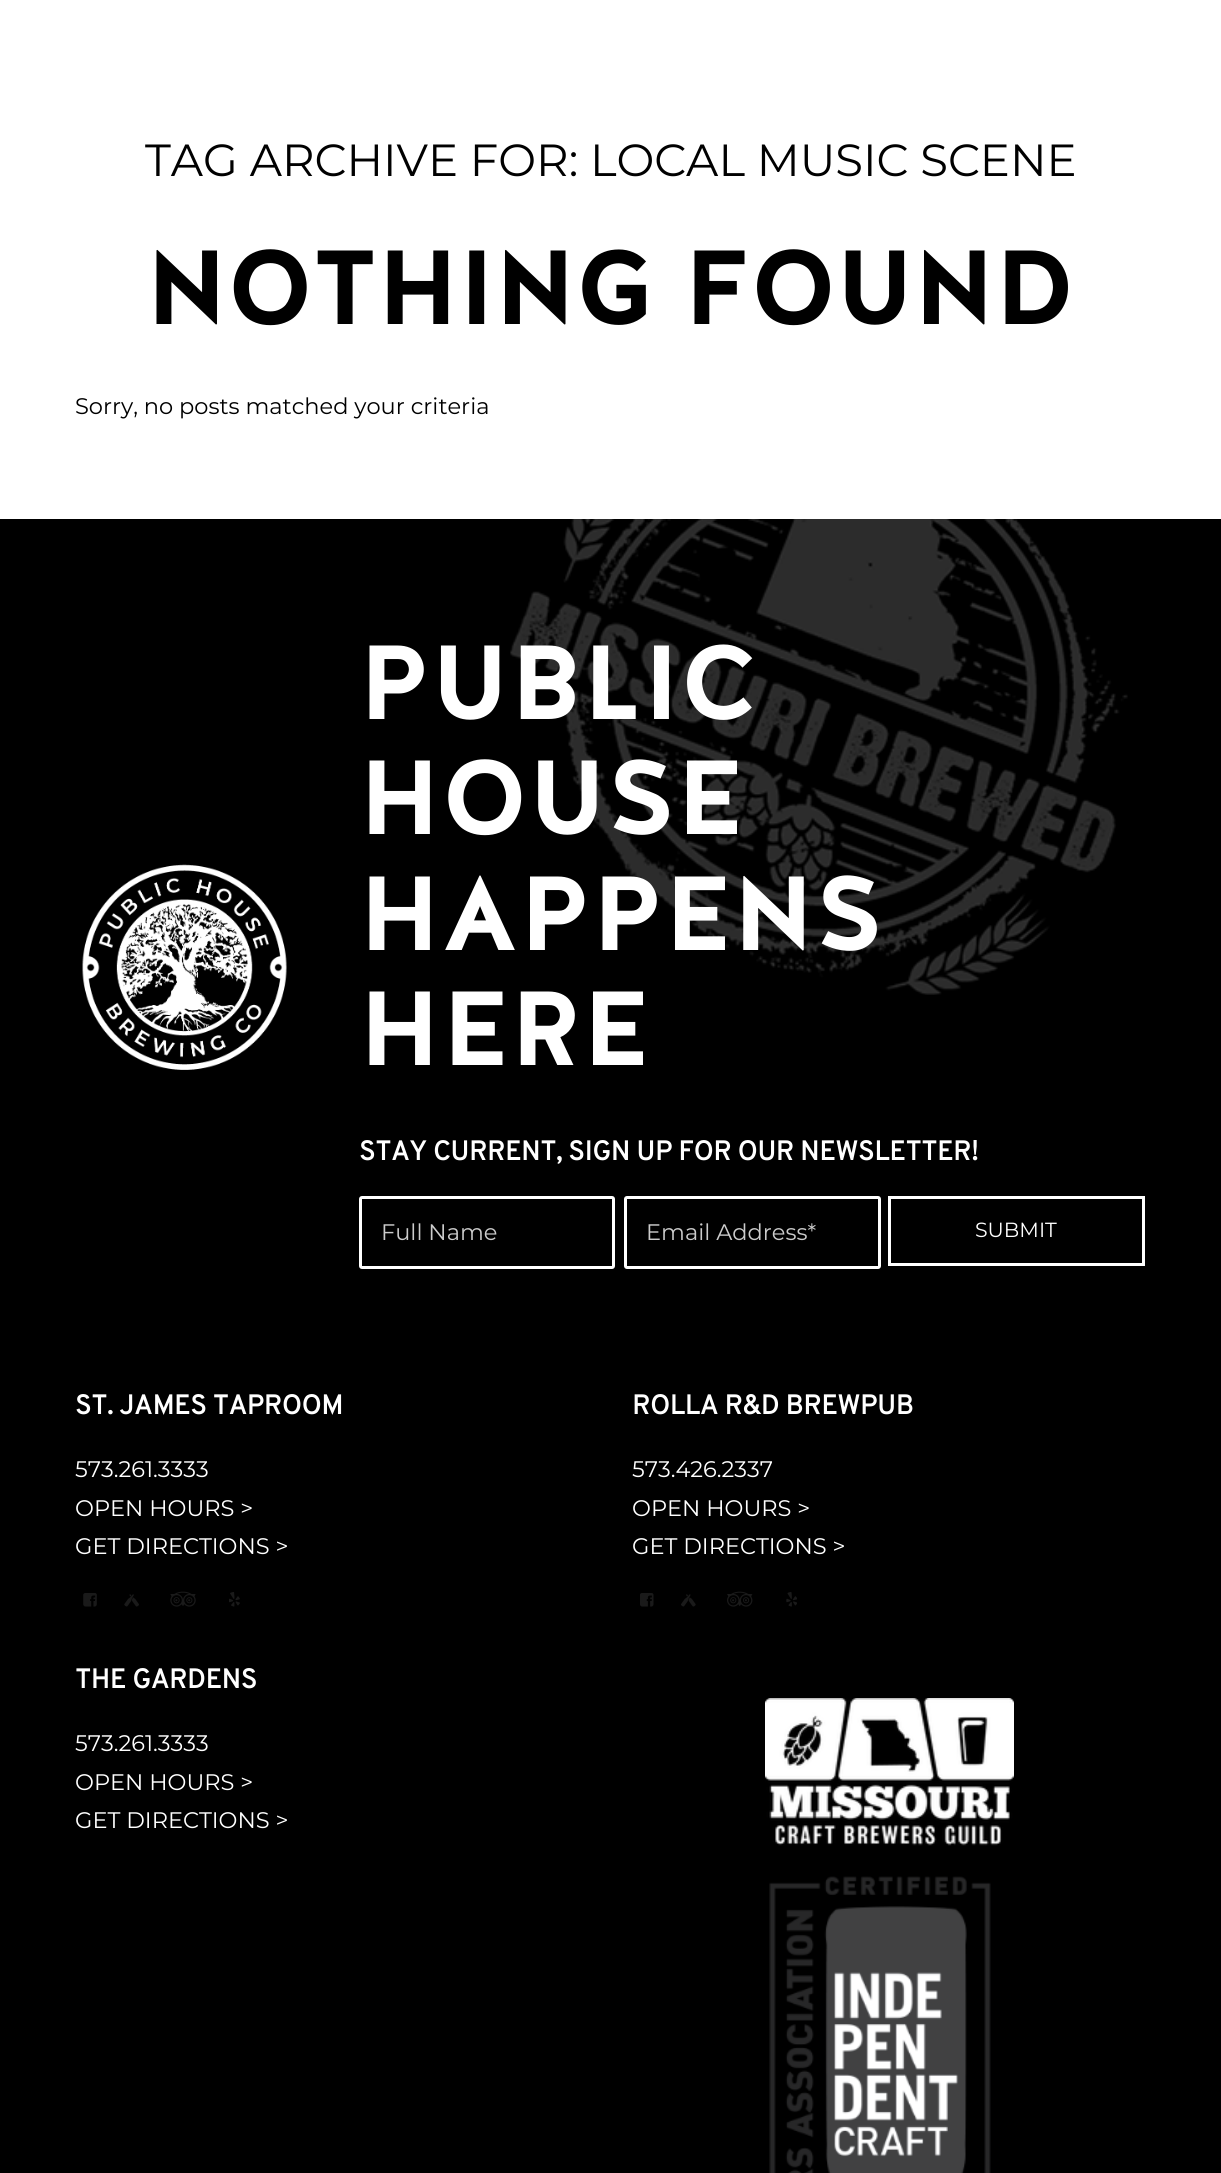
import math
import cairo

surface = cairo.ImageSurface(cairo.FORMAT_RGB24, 1221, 2173)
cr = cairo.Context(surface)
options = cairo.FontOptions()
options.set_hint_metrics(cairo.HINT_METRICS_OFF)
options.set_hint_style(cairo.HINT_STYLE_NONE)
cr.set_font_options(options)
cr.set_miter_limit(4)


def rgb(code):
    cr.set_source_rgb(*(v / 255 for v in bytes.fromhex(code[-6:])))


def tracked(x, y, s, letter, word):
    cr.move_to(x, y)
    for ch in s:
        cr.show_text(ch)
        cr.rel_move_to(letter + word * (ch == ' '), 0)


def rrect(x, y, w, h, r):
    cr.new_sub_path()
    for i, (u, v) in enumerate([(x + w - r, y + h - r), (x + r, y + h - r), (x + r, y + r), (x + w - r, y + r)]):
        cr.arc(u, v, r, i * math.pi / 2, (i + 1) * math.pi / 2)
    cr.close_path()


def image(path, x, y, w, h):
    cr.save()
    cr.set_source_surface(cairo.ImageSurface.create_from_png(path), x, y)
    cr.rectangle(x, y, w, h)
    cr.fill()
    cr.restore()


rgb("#ffffff")
cr.paint()
rgb("#000000")
cr.rectangle(0, 519, 1221, 1654)
cr.fill()
image("img/1.png", 510, 519, 618, 476)
image("img/2.png", 82, 864, 205, 206)
rrect(360.5, 1197.5, 253, 70, 1.5)
rgb("#ffffff")
cr.set_line_width(3)
cr.stroke()
rrect(625.5, 1197.5, 254, 70, 1.5)
cr.stroke()
cr.rectangle(889.5, 1197.5, 254, 67)
cr.stroke()
image("img/3.png", 83, 1593, 14, 14)
image("img/4.png", 124, 1594, 15, 13)
image("img/5.png", 170, 1591, 26, 16)
image("img/6.png", 229, 1592, 11, 15)
image("img/7.png", 640, 1593, 14, 14)
image("img/8.png", 681, 1594, 15, 13)
image("img/9.png", 727, 1591, 26, 16)
image("img/10.png", 786, 1592, 11, 15)
image("img/11.png", 765, 1698, 249, 148)
image("img/12.png", 769, 1876, 222, 297)
cr.select_font_face("Montserrat Thin")
cr.set_font_size(45)
rgb("#000000")
cr.move_to(145, 176)
cr.show_text("TAG ARCHIVE FOR: LOCAL MUSIC SCENE")
cr.select_font_face("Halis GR", cairo.FONT_SLANT_NORMAL, cairo.FONT_WEIGHT_BOLD)
cr.set_font_size(105)
cr.move_to(146, 324)
cr.show_text("NOTHING FOUND")
cr.select_font_face("Montserrat Thin")
cr.set_font_size(22.5)
cr.move_to(75, 414)
cr.show_text("Sorry, no posts matched your criteria")
cr.select_font_face("Halis GR", cairo.FONT_SLANT_NORMAL, cairo.FONT_WEIGHT_BOLD)
cr.set_font_size(105)
rgb("#ffffff")
for x, y, s in [
    (359, 719, "PUBLIC"),
    (359, 834, "HOUSE"),
    (359, 950, "HAPPENS"),
    (359, 1065, "HERE"),
]:
    tracked(x, y, s, 1.5, 0)
cr.select_font_face("Overpass", cairo.FONT_SLANT_NORMAL, cairo.FONT_WEIGHT_BOLD)
cr.set_font_size(27)
cr.move_to(359, 1160)
cr.show_text("STAY CURRENT, SIGN UP FOR OUR NEWSLETTER!")
cr.select_font_face("Montserrat Thin")
cr.set_font_size(22.5)
rgb("#cccccc")
cr.move_to(381, 1240)
cr.show_text("Full Name")
cr.move_to(646, 1240)
cr.show_text("Email Address*")
cr.set_font_size(20.5)
rgb("#ffffff")
cr.move_to(975, 1237)
cr.show_text("SUBMIT")
cr.select_font_face("Overpass", cairo.FONT_SLANT_NORMAL, cairo.FONT_WEIGHT_BOLD)
cr.set_font_size(27)
cr.move_to(75, 1414)
cr.show_text("ST. JAMES TAPROOM")
cr.select_font_face("Montserrat Thin")
cr.set_font_size(22.5)
for x, y, s in [
    (75, 1477, "573.261.3333"),
    (75, 1516, "OPEN HOURS >"),
    (75, 1554, "GET DIRECTIONS >"),
]:
    cr.move_to(x, y)
    cr.show_text(s)
cr.select_font_face("Overpass", cairo.FONT_SLANT_NORMAL, cairo.FONT_WEIGHT_BOLD)
cr.set_font_size(27)
cr.move_to(632, 1414)
cr.show_text("ROLLA R&D BREWPUB")
cr.select_font_face("Montserrat Thin")
cr.set_font_size(22.5)
for x, y, s in [
    (632, 1477, "573.426.2337"),
    (632, 1516, "OPEN HOURS >"),
    (632, 1554, "GET DIRECTIONS >"),
]:
    cr.move_to(x, y)
    cr.show_text(s)
cr.select_font_face("Overpass", cairo.FONT_SLANT_NORMAL, cairo.FONT_WEIGHT_BOLD)
cr.set_font_size(27)
cr.move_to(75, 1688)
cr.show_text("THE GARDENS")
cr.select_font_face("Montserrat Thin")
cr.set_font_size(22.5)
for x, y, s in [
    (75, 1751, "573.261.3333"),
    (75, 1790, "OPEN HOURS >"),
    (75, 1828, "GET DIRECTIONS >"),
]:
    cr.move_to(x, y)
    cr.show_text(s)
surface.write_to_png("page.png")
